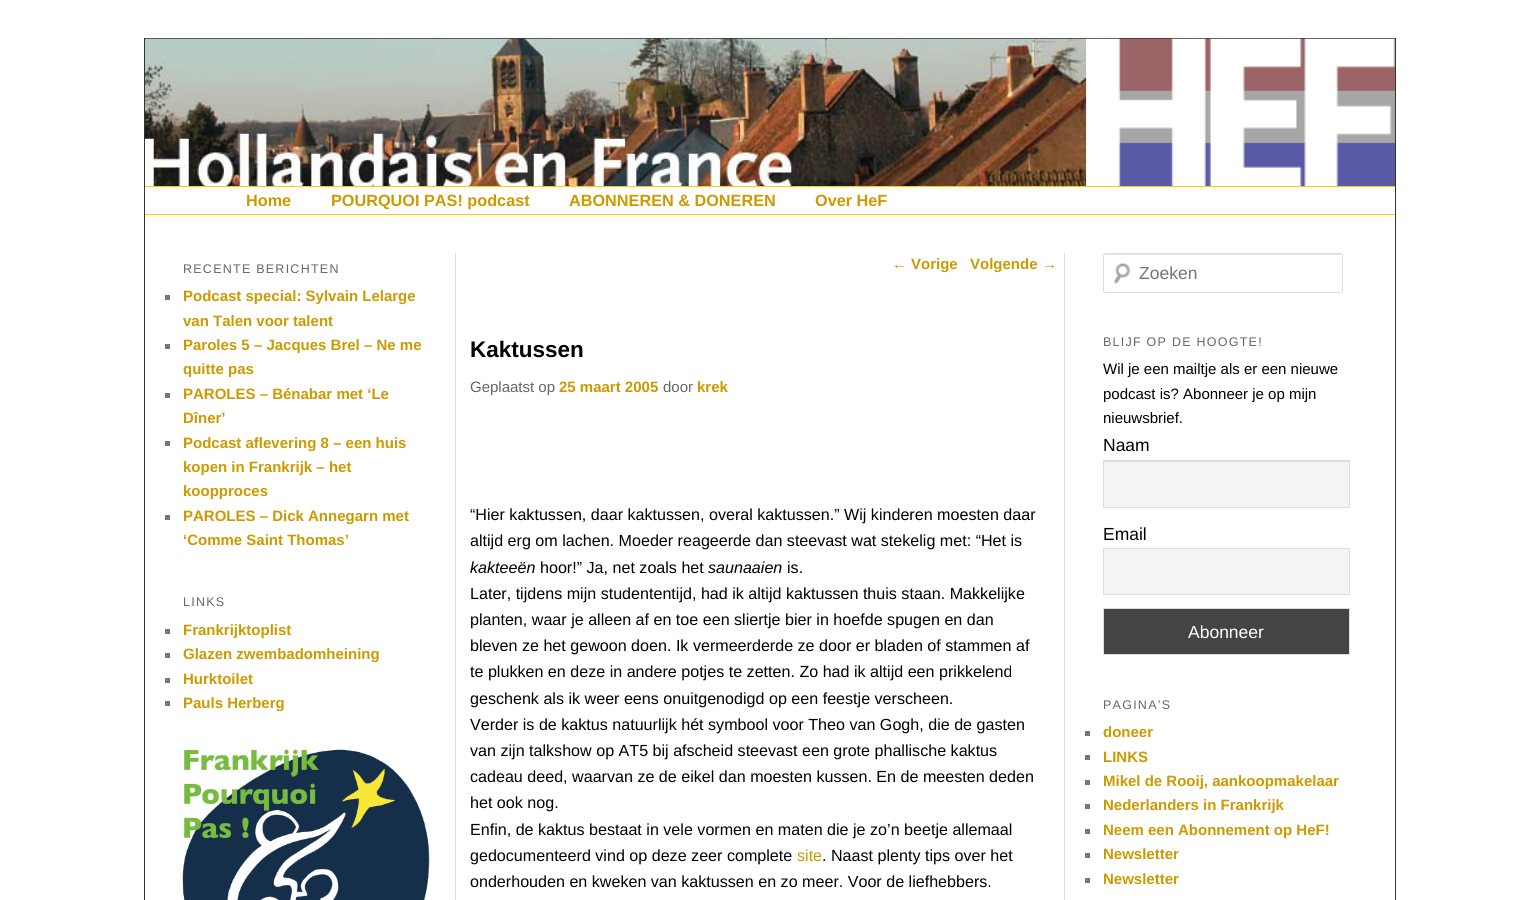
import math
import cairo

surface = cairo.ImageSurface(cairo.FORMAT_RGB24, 1540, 900)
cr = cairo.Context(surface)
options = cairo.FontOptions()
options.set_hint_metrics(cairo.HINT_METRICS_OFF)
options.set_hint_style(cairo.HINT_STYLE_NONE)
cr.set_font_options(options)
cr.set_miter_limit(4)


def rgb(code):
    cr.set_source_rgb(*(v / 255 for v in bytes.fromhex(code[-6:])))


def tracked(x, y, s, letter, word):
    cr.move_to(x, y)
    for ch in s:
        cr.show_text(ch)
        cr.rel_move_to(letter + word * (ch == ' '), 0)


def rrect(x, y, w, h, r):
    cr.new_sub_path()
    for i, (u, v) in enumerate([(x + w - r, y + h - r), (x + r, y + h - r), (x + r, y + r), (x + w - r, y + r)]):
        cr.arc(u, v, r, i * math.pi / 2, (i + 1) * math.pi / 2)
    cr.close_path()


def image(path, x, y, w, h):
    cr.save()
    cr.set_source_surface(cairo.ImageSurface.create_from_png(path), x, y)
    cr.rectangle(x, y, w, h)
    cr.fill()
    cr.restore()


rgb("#ffffff")
cr.paint()
cr.rectangle(144.5, 38.5, 1251, 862)
rgb("#333333")
cr.set_line_width(1)
cr.stroke()
image("img/1.png", 145, 38, 942, 148)
image("img/2.png", 1086, 38, 309, 148)
for x, y, w, h, color in [
    (145, 186, 1250, 1, "#ffcc00"),
    (145, 214, 1250, 1, "#ffcc00"),
    (455, 253, 1, 647, "#dddddd"),
    (165, 295, 5, 5, "#777777"),
    (165, 344, 5, 5, "#777777"),
    (165, 393, 5, 5, "#777777"),
    (165, 441, 5, 5, "#777777"),
    (165, 515, 5, 5, "#777777"),
    (165, 629, 5, 5, "#777777"),
    (165, 653, 5, 5, "#777777"),
    (165, 678, 5, 5, "#777777"),
    (165, 701, 5, 5, "#777777"),
]:
    rgb(color)
    cr.rectangle(x, y, w, h)
    cr.fill()
image("img/3.png", 182, 749, 248, 151)
rgb("#dddddd")
cr.rectangle(1064, 253, 1, 647)
cr.fill()
image("img/4.png", 1113, 262, 18, 22)
rgb("#e6e6e6")
cr.new_path()
cr.move_to(1105, 255)
cr.line_to(1340, 255)
cr.line_to(1341, 256)
cr.line_to(1341, 254)
cr.line_to(1105, 254)
cr.curve_to(1104, 254, 1104, 255, 1104, 256)
cr.close_path()
cr.fill()
rrect(1103.5, 253.5, 239, 39, 2)
rgb("#dddddd")
cr.stroke()
rgb("#f4f4f4")
cr.rectangle(1104, 462, 245, 45)
cr.fill()
rgb("#dcdcdc")
cr.rectangle(1104, 461, 245, 1)
cr.fill()
cr.rectangle(1103.5, 460.5, 246, 47)
rgb("#dddddd")
cr.stroke()
rgb("#f4f4f4")
cr.rectangle(1103.5, 548.5, 246, 46)
cr.fill_preserve()
rgb("#dddddd")
cr.stroke()
rgb("#444444")
cr.rectangle(1103.5, 608.5, 246, 46)
cr.fill_preserve()
rgb("#dddddd")
cr.stroke()
for x, y, w, h, color in [
    (1085, 731, 5, 5, "#777777"),
    (1085, 755, 5, 5, "#777777"),
    (1085, 780, 5, 5, "#777777"),
    (1085, 804, 5, 5, "#777777"),
    (1085, 829, 5, 5, "#777777"),
    (1085, 853, 5, 5, "#777777"),
    (1085, 878, 5, 5, "#777777"),
]:
    rgb(color)
    cr.rectangle(x, y, w, h)
    cr.fill()
cr.select_font_face("Liberation Sans", cairo.FONT_SLANT_NORMAL, cairo.FONT_WEIGHT_BOLD)
cr.set_font_size(16.25)
rgb("#cc9900")
for x, y, s in [
    (246, 206, "Home"),
    (331, 206, "POURQUOI PAS! podcast"),
    (569, 206, "ABONNEREN & DONEREN"),
    (815, 206, "Over HeF"),
]:
    cr.move_to(x, y)
    cr.show_text(s)
cr.select_font_face("Liberation Sans")
cr.set_font_size(12.5)
rgb("#666666")
tracked(183, 273, "RECENTE BERICHTEN", 1.25, 0)
cr.select_font_face("Liberation Sans", cairo.FONT_SLANT_NORMAL, cairo.FONT_WEIGHT_BOLD)
cr.set_font_size(15)
rgb("#cc9900")
for x, y, s in [
    (183, 301, "Podcast special: Sylvain Lelarge"),
    (183, 326, "van Talen voor talent"),
    (183, 350, "Paroles 5 – Jacques Brel – Ne me"),
    (183, 374, "quitte pas"),
    (183, 399, "PAROLES – Bénabar met ‘Le"),
    (183, 423, "Dîner’"),
    (183, 448, "Podcast aflevering 8 – een huis"),
    (183, 472, "kopen in Frankrijk – het"),
    (183, 496, "koopproces"),
    (183, 521, "PAROLES – Dick Annegarn met"),
    (183, 545, "‘Comme Saint Thomas’"),
]:
    cr.move_to(x, y)
    cr.show_text(s)
cr.select_font_face("Liberation Sans")
cr.set_font_size(12.5)
rgb("#666666")
tracked(183, 606, "LINKS", 1.25, 0)
cr.select_font_face("Liberation Sans", cairo.FONT_SLANT_NORMAL, cairo.FONT_WEIGHT_BOLD)
cr.set_font_size(15)
rgb("#cc9900")
for x, y, s in [
    (183, 635, "Frankrijktoplist"),
    (183, 659, "Glazen zwembadomheining"),
    (183, 684, "Hurktoilet"),
    (183, 708, "Pauls Herberg"),
]:
    cr.move_to(x, y)
    cr.show_text(s)
cr.select_font_face("Liberation Sans")
cr.move_to(892, 269)
cr.show_text("←")
cr.select_font_face("Liberation Sans", cairo.FONT_SLANT_NORMAL, cairo.FONT_WEIGHT_BOLD)
cr.move_to(911, 269)
cr.show_text("Vorige")
cr.move_to(970, 269)
cr.show_text("Volgende")
cr.select_font_face("Liberation Sans")
cr.move_to(1042, 269)
cr.show_text("→")
cr.select_font_face("Liberation Sans", cairo.FONT_SLANT_NORMAL, cairo.FONT_WEIGHT_BOLD)
cr.set_font_size(22.5)
rgb("#000000")
cr.move_to(470, 357)
cr.show_text("Kaktussen")
cr.select_font_face("Liberation Sans")
cr.set_font_size(15)
rgb("#666666")
cr.move_to(470, 392)
cr.show_text("Geplaatst op")
cr.select_font_face("Liberation Sans", cairo.FONT_SLANT_NORMAL, cairo.FONT_WEIGHT_BOLD)
rgb("#cc9900")
cr.move_to(559, 392)
cr.show_text("25 maart 2005")
cr.select_font_face("Liberation Sans")
rgb("#666666")
cr.move_to(663, 392)
cr.show_text("door")
cr.select_font_face("Liberation Sans", cairo.FONT_SLANT_NORMAL, cairo.FONT_WEIGHT_BOLD)
rgb("#cc9900")
cr.move_to(697, 392)
cr.show_text("krek")
cr.select_font_face("Liberation Sans")
cr.set_font_size(16.1)
rgb("#000000")
cr.move_to(470, 520)
cr.show_text("“Hier kaktussen, daar kaktussen, overal kaktussen.” Wij kinderen moesten daar")
cr.move_to(470, 546)
cr.show_text("altijd erg om lachen. Moeder reageerde dan steevast wat stekelig met: “Het is")
cr.select_font_face("Liberation Sans", cairo.FONT_SLANT_ITALIC)
cr.move_to(470, 573)
cr.show_text("kakteeën")
cr.select_font_face("Liberation Sans")
cr.move_to(540, 573)
cr.show_text("hoor!” Ja, net zoals het")
cr.select_font_face("Liberation Sans", cairo.FONT_SLANT_ITALIC)
cr.move_to(708, 573)
cr.show_text("saunaaien")
cr.select_font_face("Liberation Sans")
for x, y, s in [
    (787, 573, "is."),
    (470, 599, "Later, tijdens mijn studententijd, had ik altijd kaktussen thuis staan. Makkelijke"),
    (470, 625, "planten, waar je alleen af en toe een sliertje bier in hoefde spugen en dan"),
    (470, 651, "bleven ze het gewoon doen. Ik vermeerderde ze door er bladen of stammen af"),
    (470, 677, "te plukken en deze in andere potjes te zetten. Zo had ik altijd een prikkelend"),
    (470, 704, "geschenk als ik weer eens onuitgenodigd op een feestje verscheen."),
    (470, 730, "Verder is de kaktus natuurlijk hét symbool voor Theo van Gogh, die de gasten"),
    (470, 756, "van zijn talkshow op AT5 bij afscheid steevast een grote phallische kaktus"),
    (470, 782, "cadeau deed, waarvan ze de eikel dan moesten kussen. En de meesten deden"),
    (470, 808, "het ook nog."),
    (470, 835, "Enfin, de kaktus bestaat in vele vormen en maten die je zo’n beetje allemaal"),
    (470, 861, "gedocumenteerd vind op deze zeer complete"),
]:
    cr.move_to(x, y)
    cr.show_text(s)
rgb("#cc9900")
cr.move_to(797, 861)
cr.show_text("site")
rgb("#000000")
cr.move_to(822, 861)
cr.show_text(". Naast plenty tips over het")
cr.move_to(470, 887)
cr.show_text("onderhouden en kweken van kaktussen en zo meer. Voor de liefhebbers.")
cr.set_font_size(17.5)
rgb("#757575")
cr.move_to(1139, 279)
cr.show_text("Zoeken")
cr.set_font_size(12.5)
rgb("#666666")
tracked(1103, 346, "BLIJF OP DE HOOGTE!", 1.25, 0)
cr.set_font_size(15)
rgb("#000000")
for x, y, s in [
    (1103, 374, "Wil je een mailtje als er een nieuwe"),
    (1103, 399, "podcast is? Abonneer je op mijn"),
    (1103, 423, "nieuwsbrief."),
]:
    cr.move_to(x, y)
    cr.show_text(s)
cr.set_font_size(17.5)
cr.move_to(1103, 451)
cr.show_text("Naam")
cr.move_to(1103, 540)
cr.show_text("Email")
rgb("#ffffff")
cr.move_to(1188, 638)
cr.show_text("Abonneer")
cr.set_font_size(12.5)
rgb("#666666")
tracked(1103, 709, "PAGINA’S", 1.25, 0)
cr.select_font_face("Liberation Sans", cairo.FONT_SLANT_NORMAL, cairo.FONT_WEIGHT_BOLD)
cr.set_font_size(15)
rgb("#cc9900")
for x, y, s in [
    (1103, 737, "doneer"),
    (1103, 762, "LINKS"),
    (1103, 786, "Mikel de Rooij, aankoopmakelaar"),
    (1103, 810, "Nederlanders in Frankrijk"),
    (1103, 835, "Neem een Abonnement op HeF!"),
    (1103, 859, "Newsletter"),
    (1103, 884, "Newsletter"),
]:
    cr.move_to(x, y)
    cr.show_text(s)
surface.write_to_png("page.png")
